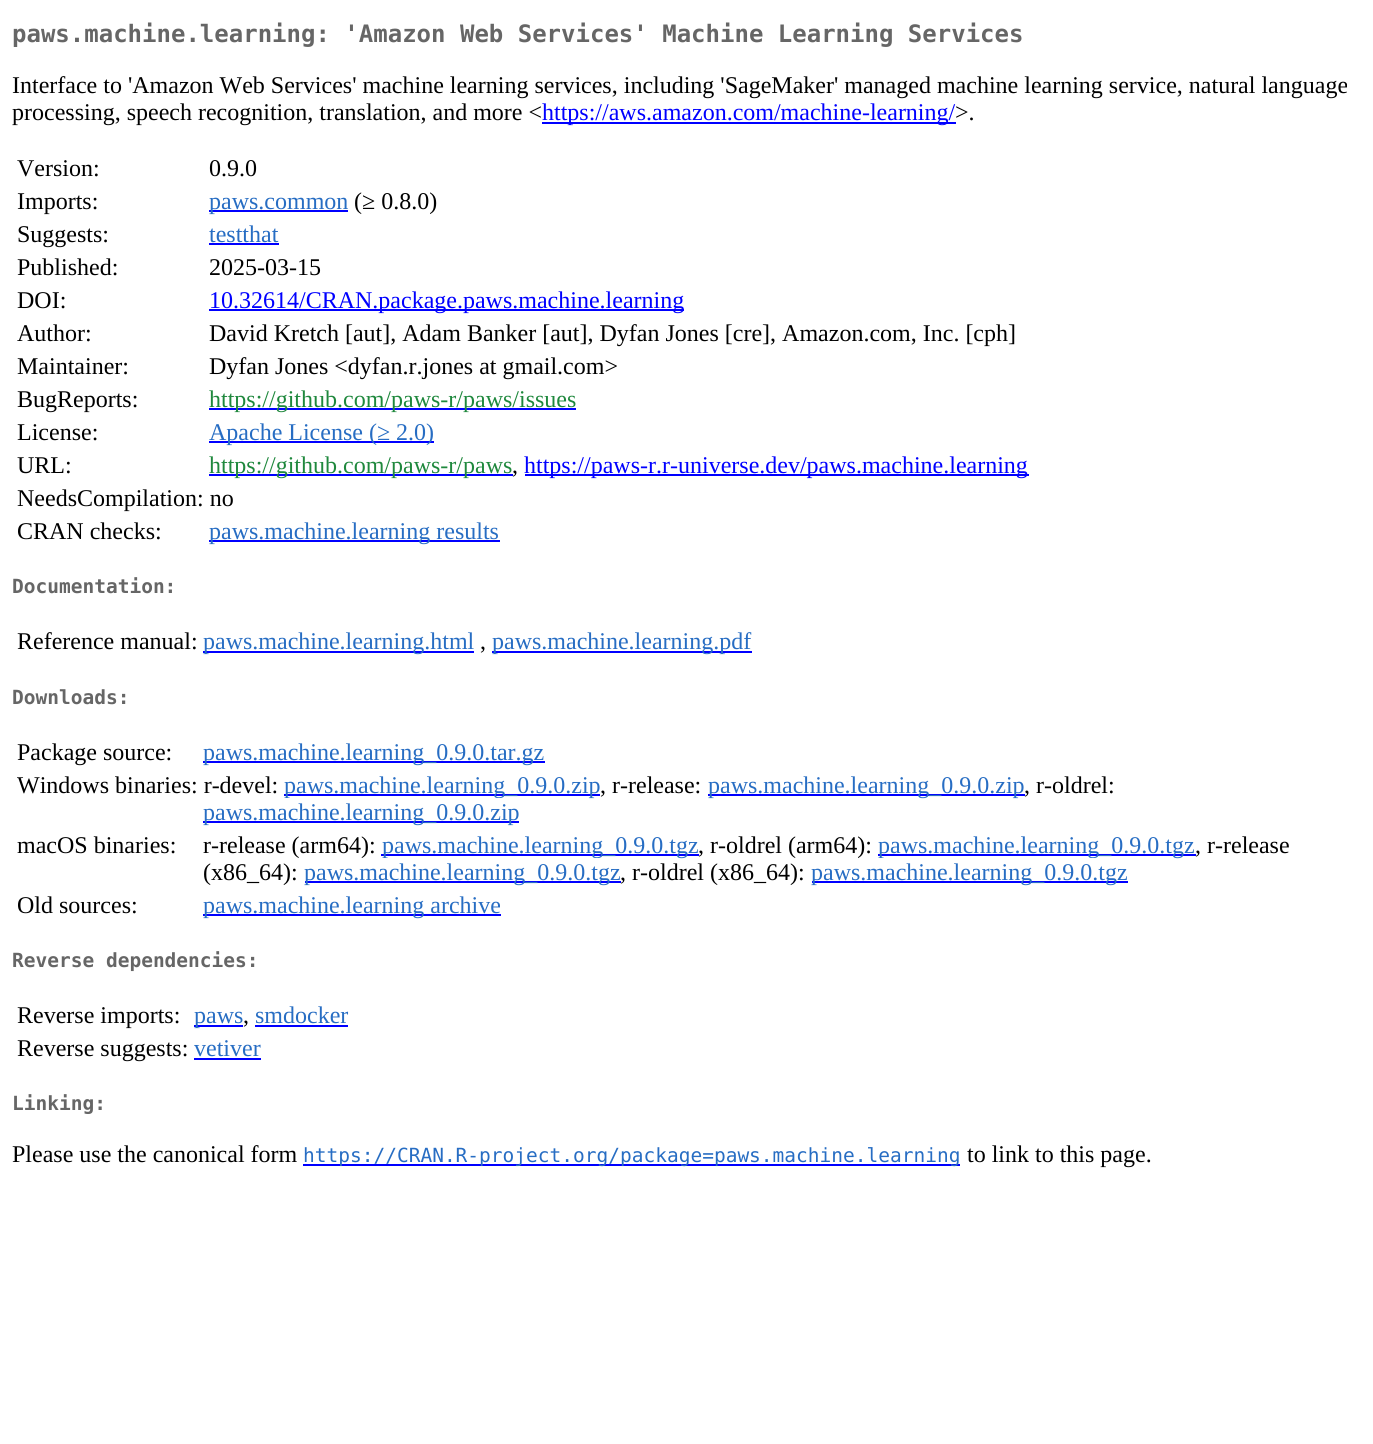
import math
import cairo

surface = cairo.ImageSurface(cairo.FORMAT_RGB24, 1373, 1444)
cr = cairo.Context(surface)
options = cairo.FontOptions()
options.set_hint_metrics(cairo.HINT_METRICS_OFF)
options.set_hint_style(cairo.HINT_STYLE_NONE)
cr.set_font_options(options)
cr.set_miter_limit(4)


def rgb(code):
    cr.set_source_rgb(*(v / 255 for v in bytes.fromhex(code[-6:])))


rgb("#ffffff")
cr.paint()
for x, y, w, h, color in [
    (542, 122, 414, 2, "#0000ff"),
    (209, 210, 139, 2, "#0000ff"),
    (209, 243, 70, 2, "#0000ff"),
    (209, 309, 475, 2, "#0000ff"),
    (209, 408, 367, 2, "#0000ff"),
    (209, 441, 225, 2, "#0000ff"),
    (209, 474, 304, 2, "#0000ff"),
    (525, 474, 504, 2, "#0000ff"),
    (209, 540, 291, 2, "#0000ff"),
    (203, 651, 271, 2, "#0000ff"),
    (492, 651, 260, 2, "#0000ff"),
    (203, 761, 342, 2, "#0000ff"),
    (284, 794, 316, 2, "#0000ff"),
    (708, 794, 317, 2, "#0000ff"),
    (203, 821, 316, 2, "#0000ff"),
    (381, 854, 318, 2, "#0000ff"),
    (878, 854, 318, 2, "#0000ff"),
    (305, 881, 316, 2, "#0000ff"),
    (812, 881, 316, 2, "#0000ff"),
    (203, 914, 298, 2, "#0000ff"),
    (194, 1025, 49, 2, "#0000ff"),
    (255, 1025, 93, 2, "#0000ff"),
    (194, 1058, 67, 2, "#0000ff"),
    (303, 1164, 657, 2, "#0000ff"),
]:
    rgb(color)
    cr.rectangle(x, y, w, h)
    cr.fill()
cr.select_font_face("DejaVu Sans Mono", cairo.FONT_SLANT_NORMAL, cairo.FONT_WEIGHT_BOLD)
cr.set_font_size(24)
rgb("#666666")
cr.move_to(12, 42)
cr.show_text("paws.machine.learning: 'Amazon Web Services' Machine Learning Services")
cr.select_font_face("Liberation Serif")
rgb("#000000")
cr.move_to(12, 93)
cr.show_text("Interface to 'Amazon Web Services' machine learning services, including 'SageMaker' managed machine learning service, natural language")
cr.move_to(12, 120)
cr.show_text("processing, speech recognition, translation, and more <")
rgb("#0000ff")
cr.move_to(542, 120)
cr.show_text("https://aws.amazon.com/machine-learning/")
rgb("#000000")
for x, y, s in [
    (955, 120, ">."),
    (17, 176, "Version:"),
    (209, 176, "0.9.0"),
    (17, 209, "Imports:"),
]:
    cr.move_to(x, y)
    cr.show_text(s)
rgb("#276dc3")
cr.move_to(209, 209)
cr.show_text("paws.common")
rgb("#000000")
cr.move_to(354, 209)
cr.show_text("(≥ 0.8.0)")
cr.move_to(17, 242)
cr.show_text("Suggests:")
rgb("#276dc3")
cr.move_to(209, 242)
cr.show_text("testthat")
rgb("#000000")
for x, y, s in [
    (17, 275, "Published:"),
    (209, 275, "2025-03-15"),
    (17, 308, "DOI:"),
]:
    cr.move_to(x, y)
    cr.show_text(s)
rgb("#0000ff")
cr.move_to(209, 308)
cr.show_text("10.32614/CRAN.package.paws.machine.learning")
rgb("#000000")
for x, y, s in [
    (17, 341, "Author:"),
    (209, 341, "David Kretch [aut], Adam Banker [aut], Dyfan Jones [cre], Amazon.com, Inc. [cph]"),
    (17, 374, "Maintainer:"),
    (209, 374, "Dyfan Jones <dyfan.r.jones at gmail.com>"),
    (17, 407, "BugReports:"),
]:
    cr.move_to(x, y)
    cr.show_text(s)
rgb("#1f883d")
cr.move_to(209, 407)
cr.show_text("https://github.com/paws-r/paws/issues")
rgb("#000000")
cr.move_to(17, 440)
cr.show_text("License:")
rgb("#276dc3")
cr.move_to(209, 440)
cr.show_text("Apache License (≥ 2.0)")
rgb("#000000")
cr.move_to(17, 473)
cr.show_text("URL:")
rgb("#1f883d")
cr.move_to(209, 473)
cr.show_text("https://github.com/paws-r/paws")
rgb("#000000")
cr.move_to(512, 473)
cr.show_text(",")
rgb("#0000ff")
cr.move_to(524, 473)
cr.show_text("https://paws-r.r-universe.dev/paws.machine.learning")
rgb("#000000")
cr.move_to(17, 506)
cr.show_text("NeedsCompilation: no")
cr.move_to(17, 539)
cr.show_text("CRAN checks:")
rgb("#276dc3")
cr.move_to(209, 539)
cr.show_text("paws.machine.learning results")
cr.select_font_face("DejaVu Sans Mono", cairo.FONT_SLANT_NORMAL, cairo.FONT_WEIGHT_BOLD)
cr.set_font_size(19.5)
rgb("#666666")
cr.move_to(12, 593)
cr.show_text("Documentation:")
cr.select_font_face("Liberation Serif")
cr.set_font_size(24)
rgb("#000000")
cr.move_to(17, 649)
cr.show_text("Reference manual:")
rgb("#276dc3")
cr.move_to(203, 649)
cr.show_text("paws.machine.learning.html")
rgb("#000000")
cr.move_to(480, 649)
cr.show_text(",")
rgb("#276dc3")
cr.move_to(492, 649)
cr.show_text("paws.machine.learning.pdf")
cr.select_font_face("DejaVu Sans Mono", cairo.FONT_SLANT_NORMAL, cairo.FONT_WEIGHT_BOLD)
cr.set_font_size(19.5)
rgb("#666666")
cr.move_to(12, 704)
cr.show_text("Downloads:")
cr.select_font_face("Liberation Serif")
cr.set_font_size(24)
rgb("#000000")
cr.move_to(17, 760)
cr.show_text("Package source:")
rgb("#276dc3")
cr.move_to(203, 760)
cr.show_text("paws.machine.learning_0.9.0.tar.gz")
rgb("#000000")
cr.move_to(17, 793)
cr.show_text("Windows binaries: r-devel:")
rgb("#276dc3")
cr.move_to(284, 793)
cr.show_text("paws.machine.learning_0.9.0.zip")
rgb("#000000")
cr.move_to(600, 793)
cr.show_text(", r-release:")
rgb("#276dc3")
cr.move_to(708, 793)
cr.show_text("paws.machine.learning_0.9.0.zip")
rgb("#000000")
cr.move_to(1024, 793)
cr.show_text(", r-oldrel:")
rgb("#276dc3")
cr.move_to(203, 820)
cr.show_text("paws.machine.learning_0.9.0.zip")
rgb("#ffffff")
cr.rectangle(284, 798, 217, 1)
cr.fill()
rgb("#000000")
cr.move_to(17, 853)
cr.show_text("macOS binaries:")
cr.move_to(203, 853)
cr.show_text("r-release (arm64):")
rgb("#276dc3")
cr.move_to(382, 853)
cr.show_text("paws.machine.learning_0.9.0.tgz")
rgb("#000000")
cr.move_to(698, 853)
cr.show_text(", r-oldrel (arm64):")
rgb("#276dc3")
cr.move_to(878, 853)
cr.show_text("paws.machine.learning_0.9.0.tgz")
rgb("#000000")
cr.move_to(1195, 853)
cr.show_text(", r-release")
cr.move_to(203, 880)
cr.show_text("(x86_64):")
rgb("#276dc3")
cr.move_to(304, 880)
cr.show_text("paws.machine.learning_0.9.0.tgz")
rgb("#ffffff")
cr.rectangle(382, 858, 217, 1)
cr.fill()
rgb("#000000")
cr.move_to(620, 880)
cr.show_text(", r-oldrel (x86_64):")
rgb("#276dc3")
cr.move_to(811, 880)
cr.show_text("paws.machine.learning_0.9.0.tgz")
rgb("#ffffff")
cr.rectangle(878, 858, 217, 1)
cr.fill()
rgb("#000000")
cr.move_to(17, 913)
cr.show_text("Old sources:")
rgb("#276dc3")
cr.move_to(203, 913)
cr.show_text("paws.machine.learning archive")
cr.select_font_face("DejaVu Sans Mono", cairo.FONT_SLANT_NORMAL, cairo.FONT_WEIGHT_BOLD)
cr.set_font_size(19.5)
rgb("#666666")
cr.move_to(12, 967)
cr.show_text("Reverse dependencies:")
cr.select_font_face("Liberation Serif")
cr.set_font_size(24)
rgb("#000000")
cr.move_to(17, 1023)
cr.show_text("Reverse imports:")
rgb("#276dc3")
cr.move_to(194, 1023)
cr.show_text("paws")
rgb("#000000")
cr.move_to(243, 1023)
cr.show_text(",")
rgb("#276dc3")
cr.move_to(255, 1023)
cr.show_text("smdocker")
rgb("#000000")
cr.move_to(17, 1056)
cr.show_text("Reverse suggests:")
rgb("#276dc3")
cr.move_to(194, 1056)
cr.show_text("vetiver")
cr.select_font_face("DejaVu Sans Mono", cairo.FONT_SLANT_NORMAL, cairo.FONT_WEIGHT_BOLD)
cr.set_font_size(19.5)
rgb("#666666")
cr.move_to(12, 1110)
cr.show_text("Linking:")
cr.select_font_face("Liberation Serif")
cr.set_font_size(24)
rgb("#000000")
cr.move_to(12, 1162)
cr.show_text("Please use the canonical form")
cr.select_font_face("DejaVu Sans Mono")
cr.set_font_size(19.5)
rgb("#276dc3")
cr.move_to(303, 1162)
cr.show_text("https://CRAN.R-project.org/package=paws.machine.learning")
cr.select_font_face("Liberation Serif")
cr.set_font_size(24)
rgb("#000000")
cr.move_to(967, 1162)
cr.show_text("to link to this page.")
surface.write_to_png("page.png")
